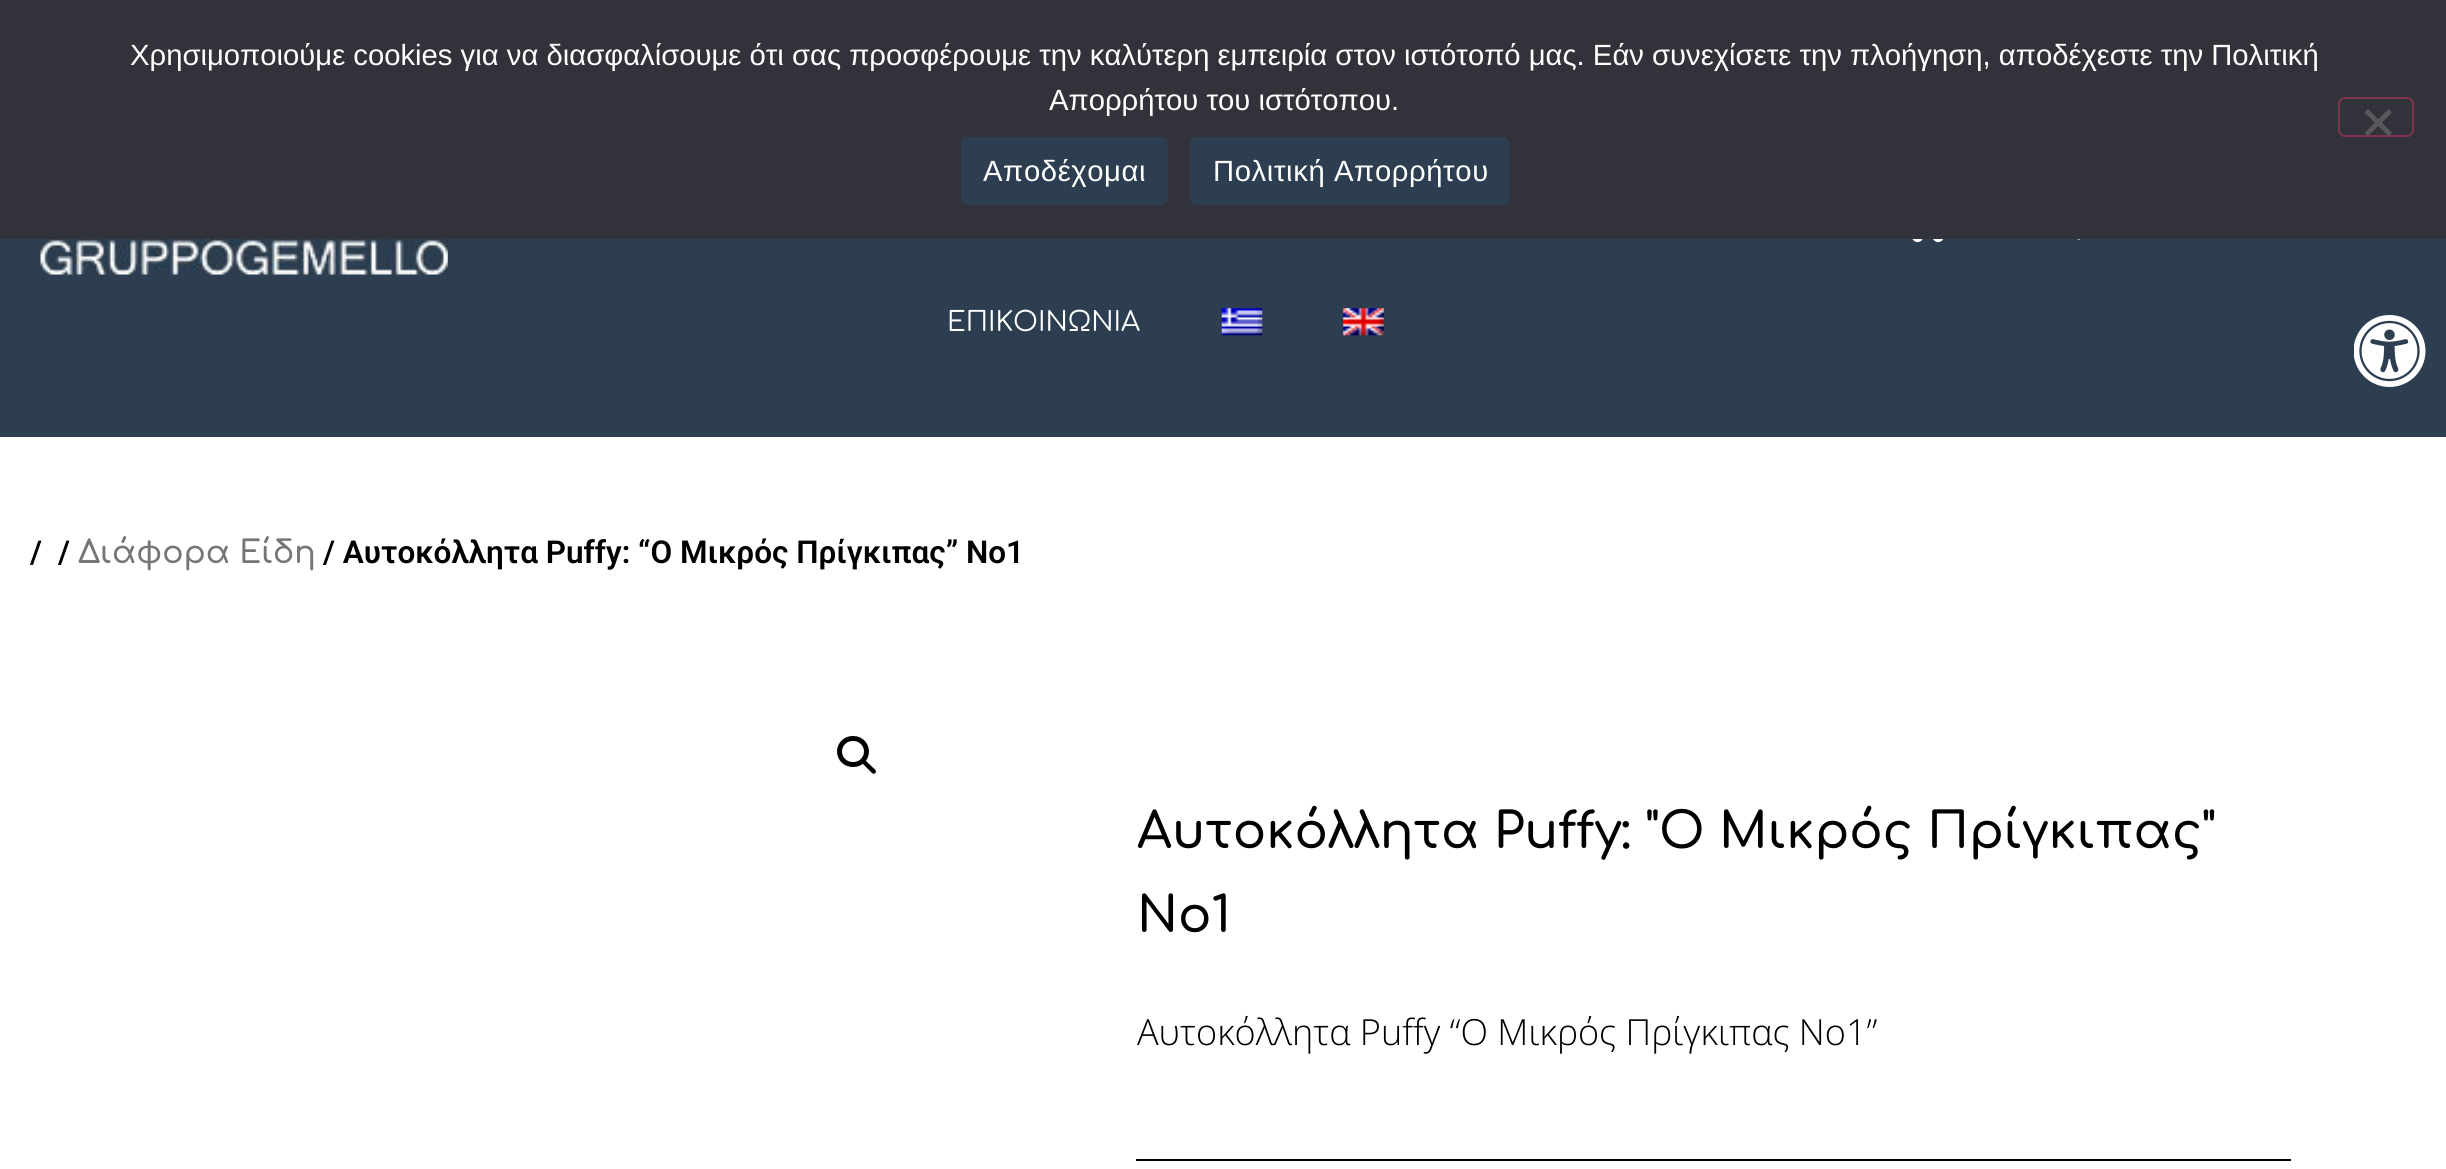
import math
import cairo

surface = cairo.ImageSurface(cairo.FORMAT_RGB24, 2446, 1169)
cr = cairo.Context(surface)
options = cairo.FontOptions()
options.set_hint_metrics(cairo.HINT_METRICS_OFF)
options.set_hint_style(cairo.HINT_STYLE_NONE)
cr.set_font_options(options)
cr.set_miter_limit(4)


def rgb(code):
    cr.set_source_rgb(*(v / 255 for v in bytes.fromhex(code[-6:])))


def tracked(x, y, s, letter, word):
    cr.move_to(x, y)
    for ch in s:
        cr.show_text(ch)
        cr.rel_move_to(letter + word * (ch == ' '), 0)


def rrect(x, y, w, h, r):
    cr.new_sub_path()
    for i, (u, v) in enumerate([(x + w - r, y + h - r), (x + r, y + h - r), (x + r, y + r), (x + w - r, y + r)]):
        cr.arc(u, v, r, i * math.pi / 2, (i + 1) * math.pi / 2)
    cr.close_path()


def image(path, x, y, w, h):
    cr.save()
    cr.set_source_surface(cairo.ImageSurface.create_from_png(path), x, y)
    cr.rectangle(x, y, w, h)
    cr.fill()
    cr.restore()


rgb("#ffffff")
cr.paint()
rgb("#32323a")
cr.rectangle(0, 0, 2446, 239)
cr.fill()
rrect(2339, 98, 74, 38, 6)
rgb("#7f3350")
cr.stroke()
rgb("#59595d")
cr.new_path()
cr.move_to(2388.5, 109)
cr.line_to(2392, 112.5)
cr.line_to(2368, 136)
cr.line_to(2364.5, 133)
cr.close_path()
cr.fill()
cr.new_path()
cr.move_to(2364.5, 112.5)
cr.line_to(2368, 109)
cr.line_to(2392, 133)
cr.line_to(2388.5, 136)
cr.close_path()
cr.fill()
rgb("#2c3e50")
rrect(961, 137, 207, 68, 7)
cr.fill()
rrect(1190, 137, 320, 68, 7)
cr.fill()
cr.rectangle(0, 239, 2446, 198)
cr.fill()
image("img/1.png", 40, 239, 408, 36)
image("img/2.png", 1912, 239, 32, 4)
image("img/3.png", 2077, 239, 4, 1)
image("img/4.png", 1221, 308, 42, 28)
image("img/5.png", 1343, 308, 41, 28)
image("img/6.png", 2354, 315, 72, 72)
rrect(839.5, 738.5, 27, 26, 13)
rgb("#000000")
cr.set_line_width(5)
cr.stroke()
cr.new_path()
cr.move_to(862.5, 760.5)
cr.curve_to(863.5, 759.5, 865, 759.5, 865.5, 760.5)
cr.line_to(875.5, 770)
cr.curve_to(876, 771, 876, 772.5, 875.5, 773)
cr.curve_to(874.5, 774, 873, 774, 872, 773)
cr.line_to(862.5, 763.5)
cr.curve_to(861.5, 762.5, 861.5, 761.5, 862.5, 760.5)
cr.close_path()
cr.fill()
cr.rectangle(1136, 1159, 1155, 2)
cr.fill()
cr.select_font_face("Liberation Sans")
cr.set_font_size(29.25)
rgb("#ffffff")
cr.move_to(130, 65)
cr.show_text("Χρησιμοποιούμε cookies για να διασφαλίσουμε ότι σας προσφέρουμε την καλύτερη εμπειρία στον ιστότοπό μας. Εάν συνεχίσετε την πλοήγηση, αποδέχεστε την Πολιτική")
cr.move_to(1049, 110)
cr.show_text("Απορρήτου του ιστότοπου.")
tracked(983, 181, "Αποδέχομαι", 0.6, 0)
tracked(1213, 181, "Πολιτική Απορρήτου", 0.6, 0)
cr.select_font_face("Comfortaa")
cr.set_font_size(27)
cr.move_to(947, 331)
cr.show_text("ΕΠΙΚΟΙΝΩΝΙΑ")
cr.select_font_face("Roboto SemiBold")
cr.set_font_size(31.5)
rgb("#000000")
cr.move_to(30, 563)
cr.show_text("/")
cr.move_to(58, 563)
cr.show_text("/")
cr.select_font_face("Comfortaa SemiBold")
rgb("#767676")
cr.move_to(78, 563)
cr.show_text("Διάφορα Είδη")
cr.select_font_face("Roboto SemiBold")
rgb("#000000")
cr.move_to(323, 563)
cr.show_text("/ Αυτοκόλλητα Puffy: “Ο Μικρός Πρίγκιπας” Νο1")
cr.select_font_face("Comfortaa SemiBold")
cr.set_font_size(49.5)
cr.move_to(1137, 848)
cr.show_text("Αυτοκόλλητα Puffy: \"Ο Μικρός Πρίγκιπας\"")
cr.move_to(1137, 932)
cr.show_text("Νο1")
cr.select_font_face("Open Sans Light")
cr.set_font_size(36)
cr.move_to(1137, 1045)
cr.show_text("Αυτοκόλλητα Puffy “Ο Μικρός Πρίγκιπας Νο1”")
surface.write_to_png("page.png")
